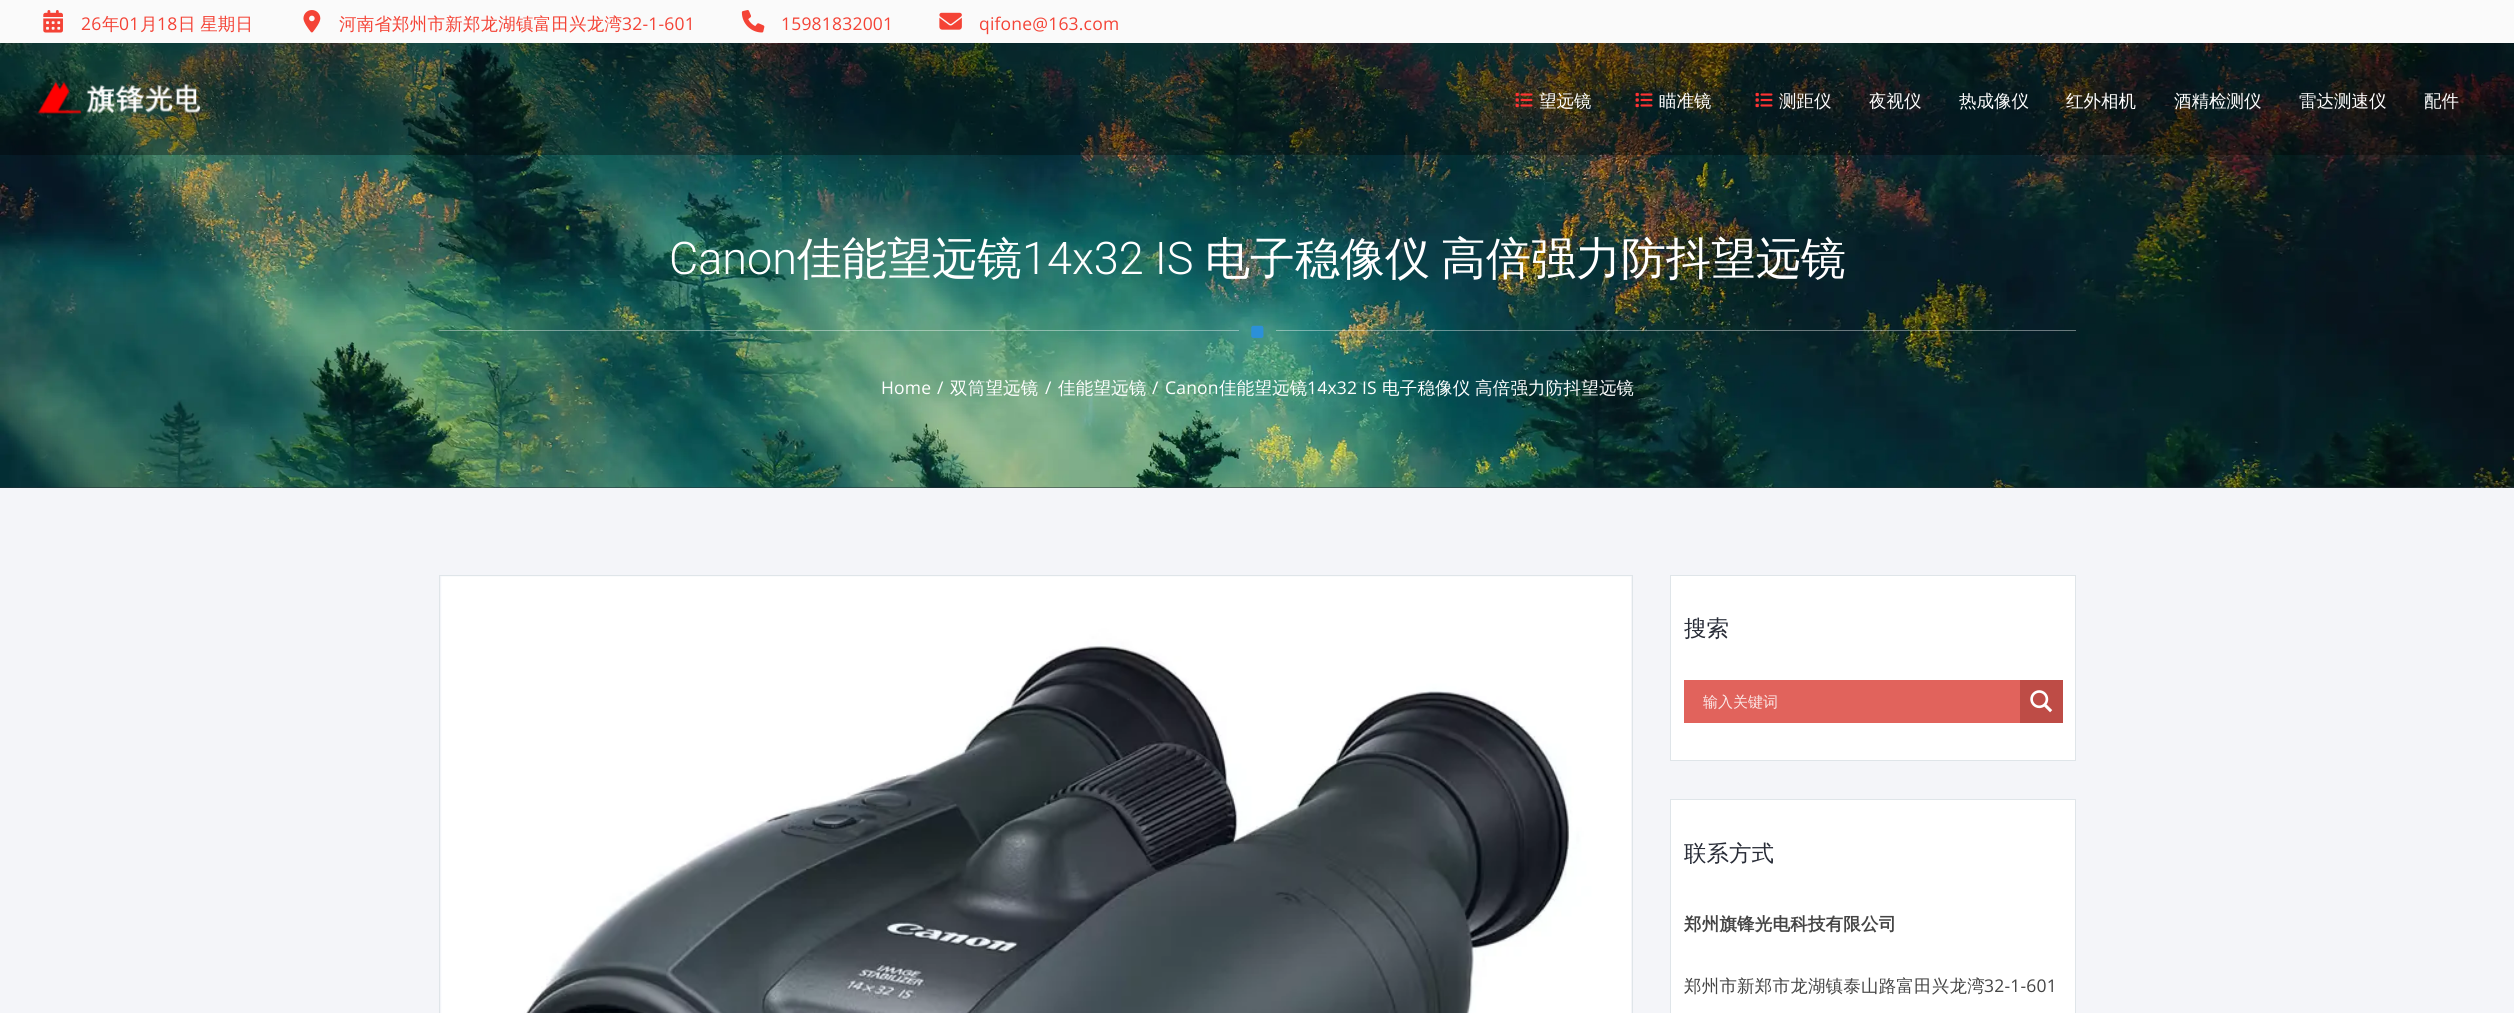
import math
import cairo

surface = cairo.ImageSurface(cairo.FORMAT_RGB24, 2514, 1013)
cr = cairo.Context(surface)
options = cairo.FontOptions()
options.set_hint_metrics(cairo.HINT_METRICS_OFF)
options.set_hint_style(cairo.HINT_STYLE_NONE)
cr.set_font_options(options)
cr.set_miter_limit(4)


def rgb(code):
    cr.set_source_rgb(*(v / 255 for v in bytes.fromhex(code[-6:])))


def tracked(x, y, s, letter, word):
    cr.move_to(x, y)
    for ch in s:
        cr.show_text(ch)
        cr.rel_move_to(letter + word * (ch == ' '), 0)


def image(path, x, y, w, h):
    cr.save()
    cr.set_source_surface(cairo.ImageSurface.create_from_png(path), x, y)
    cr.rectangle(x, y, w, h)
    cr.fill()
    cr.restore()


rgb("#f4f5f9")
cr.paint()
rgb("#282c37")
cr.rectangle(0, 487, 2514, 1)
cr.fill()
image("img/9.png", 0, 43, 2514, 445)
cr.set_source_rgba(0, 0, 0, 0.34)
cr.rectangle(0, 43, 2514, 112)
cr.fill()
rgb("#fafafa")
cr.rectangle(0, 0, 2514, 43)
cr.fill()
image("img/1.png", 43, 10, 20, 23)
image("img/2.png", 303, 10, 18, 23)
image("img/3.png", 741, 10, 24, 23)
image("img/4.png", 939, 12, 23, 18)
image("img/5.png", 37, 81, 163, 33)
image("img/6.png", 1515, 92, 18, 16)
image("img/7.png", 1635, 92, 18, 16)
image("img/8.png", 1755, 92, 18, 16)
cr.set_source_rgba(1, 1, 1, 0.4)
cr.rectangle(439, 330, 800, 1)
cr.fill()
image("img/10.png", 1251, 325, 13, 13)
cr.rectangle(1276, 330, 800, 1)
cr.fill()
cr.rectangle(439.5, 575.5, 1193, 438)
rgb("#dfe5e9")
cr.set_line_width(1)
cr.stroke()
image("img/11.png", 441, 576, 1190, 437)
rgb("#ffffff")
cr.rectangle(1670.5, 575.5, 405, 185)
cr.fill_preserve()
rgb("#dfe5e9")
cr.stroke()
rgb("#e1635c")
cr.rectangle(1684, 680, 336, 43)
cr.fill()
rgb("#be4c46")
cr.rectangle(2020, 680, 43, 43)
cr.fill()
image("img/12.png", 2030, 690, 23, 23)
rgb("#ffffff")
cr.rectangle(1670.5, 799.5, 405, 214)
cr.fill_preserve()
rgb("#dfe5e9")
cr.stroke()
cr.select_font_face("Open Sans")
cr.set_font_size(17.5)
rgb("#f44336")
tracked(81, 30, "26", 0.2, 0)
cr.select_font_face("WenQuanYi Zen Hei Medium")
tracked(102, 30, "年", 0.2, 0)
cr.select_font_face("Open Sans")
tracked(119, 30, "01", 0.2, 0)
cr.select_font_face("WenQuanYi Zen Hei Medium")
tracked(140, 30, "月", 0.2, 0)
cr.select_font_face("Open Sans")
tracked(157, 30, "18", 0.2, 0)
cr.select_font_face("WenQuanYi Zen Hei Medium")
tracked(178, 30, "日 星期日", 0.2, -1)
tracked(339, 30, "河南省郑州市新郑龙湖镇富田兴龙湾", 0.2, 0)
cr.select_font_face("Open Sans")
for x, y, s in [
    (622, 30, "32-1-601"),
    (781, 30, "15981832001"),
    (979, 30, "qifone@163.com"),
]:
    tracked(x, y, s, 0.2, 0)
cr.select_font_face("WenQuanYi Zen Hei Medium")
rgb("#ffffff")
for x, y, s in [
    (1539, 107, "望远镜"),
    (1659, 107, "瞄准镜"),
    (1779, 107, "测距仪"),
    (1869, 107, "夜视仪"),
    (1959, 107, "热成像仪"),
    (2066, 107, "红外相机"),
    (2174, 107, "酒精检测仪"),
    (2299, 107, "雷达测速仪"),
    (2424, 107, "配件"),
]:
    cr.move_to(x, y)
    cr.show_text(s)
cr.select_font_face("Roboto Light")
cr.set_font_size(45)
cr.move_to(669, 274)
cr.show_text("Canon")
cr.select_font_face("WenQuanYi Zen Hei Medium")
cr.move_to(797, 274)
cr.show_text("佳能望远镜")
cr.select_font_face("Roboto Light")
cr.move_to(1022, 274)
cr.show_text("14x32 IS")
cr.select_font_face("WenQuanYi Zen Hei Medium")
cr.move_to(1205, 274)
cr.show_text("电子稳像仪")
cr.move_to(1441, 274)
cr.show_text("高倍强力防抖望远镜")
cr.select_font_face("Open Sans")
cr.set_font_size(17.5)
tracked(881, 394, "Home", 0.2, 0)
tracked(937, 394, "/", 0.2, 0)
cr.select_font_face("WenQuanYi Zen Hei Medium")
tracked(950, 394, "双筒望远镜", 0.2, 0)
cr.select_font_face("Open Sans")
tracked(1045, 394, "/", 0.2, 0)
cr.select_font_face("WenQuanYi Zen Hei Medium")
tracked(1058, 394, "佳能望远镜", 0.2, 0)
cr.select_font_face("Open Sans")
tracked(1152, 394, "/", 0.2, 0)
tracked(1165, 394, "Canon", 0.2, 0)
cr.select_font_face("WenQuanYi Zen Hei Medium")
tracked(1219, 394, "佳能望远镜", 0.2, 0)
cr.select_font_face("Open Sans")
tracked(1307, 394, "14x32 IS", 0.2, 0)
cr.select_font_face("WenQuanYi Zen Hei Medium")
tracked(1382, 394, "电子稳像仪", 0.2, 0)
tracked(1475, 394, "高倍强力防抖望远镜", 0.2, 0)
cr.set_font_size(22.5)
rgb("#282c37")
cr.move_to(1684, 636)
cr.show_text("搜索")
cr.save()
cr.rectangle(1703, 691, 311, 23)
cr.clip()
cr.set_font_size(15)
rgb("#fbe8e7")
cr.move_to(1703, 707)
cr.show_text("输入关键词")
cr.restore()
cr.move_to(1684, 861)
cr.show_text("联系方式")
cr.select_font_face("WenQuanYi Zen Hei", cairo.FONT_SLANT_NORMAL, cairo.FONT_WEIGHT_BOLD)
cr.set_font_size(17.5)
rgb("#444444")
tracked(1684, 930, "郑州旗锋光电科技有限公司", 0.2, 0)
cr.select_font_face("WenQuanYi Zen Hei Medium")
tracked(1684, 992, "郑州市新郑市龙湖镇泰山路富田兴龙湾", 0.2, 0)
cr.select_font_face("Open Sans")
tracked(1984, 992, "32-1-601", 0.2, 0)
surface.write_to_png("page.png")
